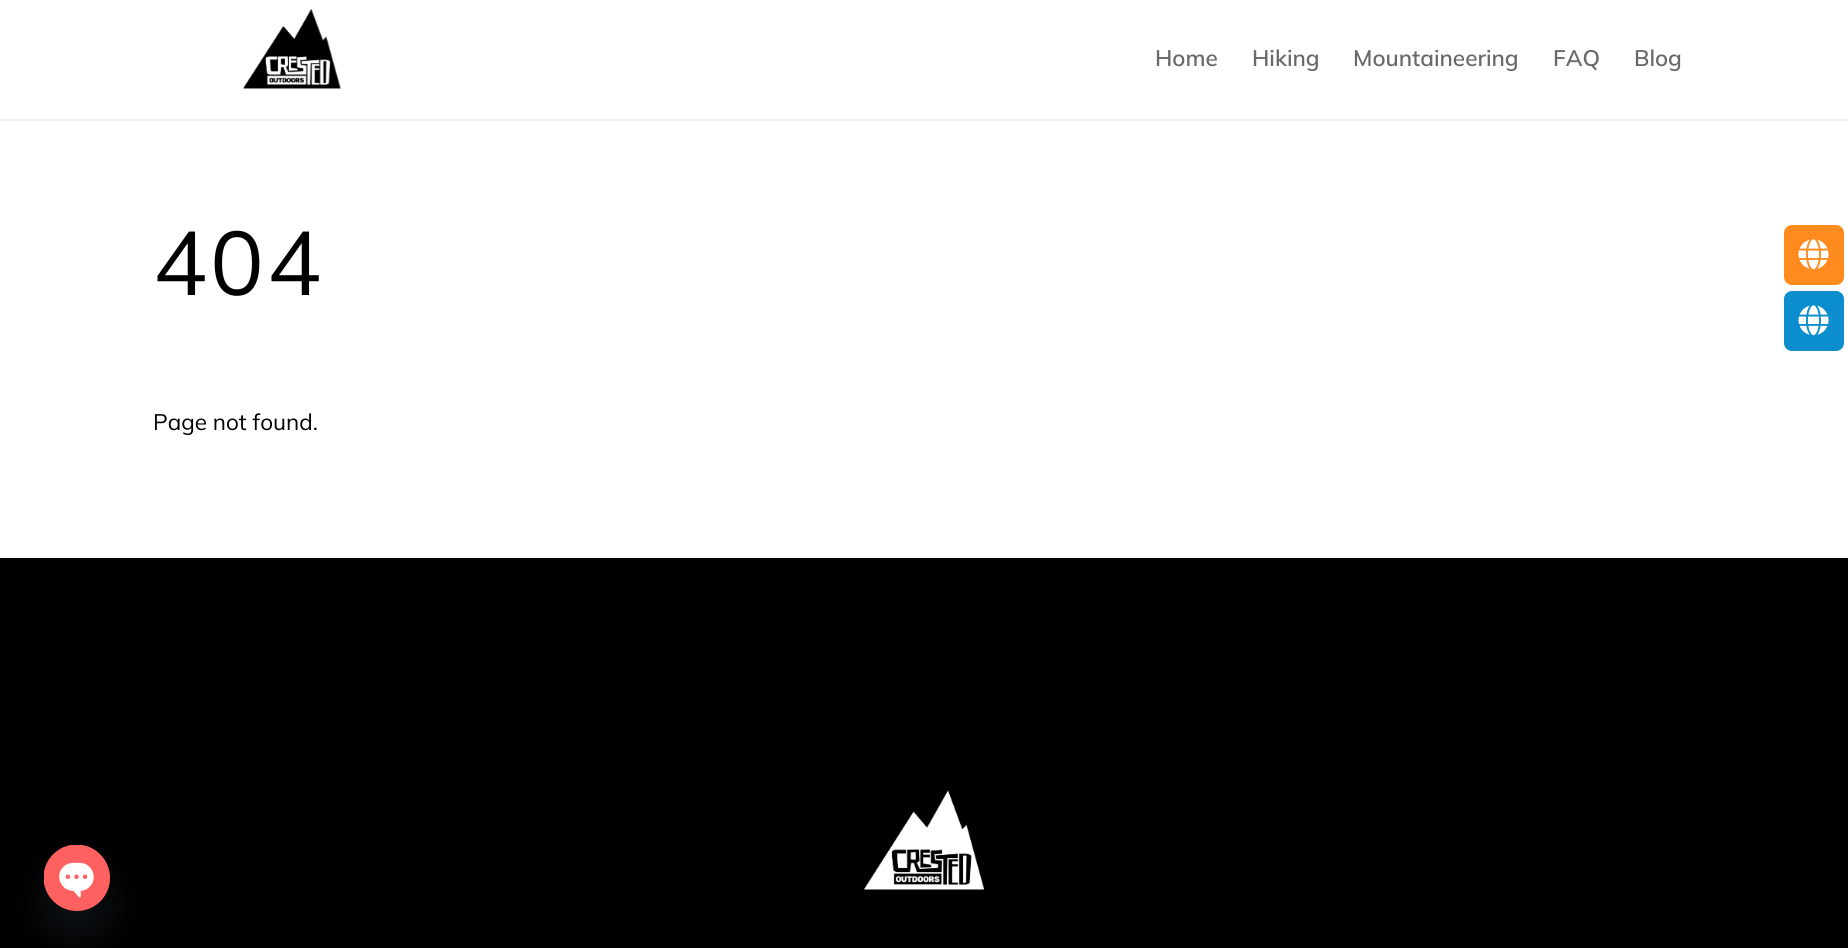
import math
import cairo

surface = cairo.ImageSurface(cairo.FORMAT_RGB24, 1848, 948)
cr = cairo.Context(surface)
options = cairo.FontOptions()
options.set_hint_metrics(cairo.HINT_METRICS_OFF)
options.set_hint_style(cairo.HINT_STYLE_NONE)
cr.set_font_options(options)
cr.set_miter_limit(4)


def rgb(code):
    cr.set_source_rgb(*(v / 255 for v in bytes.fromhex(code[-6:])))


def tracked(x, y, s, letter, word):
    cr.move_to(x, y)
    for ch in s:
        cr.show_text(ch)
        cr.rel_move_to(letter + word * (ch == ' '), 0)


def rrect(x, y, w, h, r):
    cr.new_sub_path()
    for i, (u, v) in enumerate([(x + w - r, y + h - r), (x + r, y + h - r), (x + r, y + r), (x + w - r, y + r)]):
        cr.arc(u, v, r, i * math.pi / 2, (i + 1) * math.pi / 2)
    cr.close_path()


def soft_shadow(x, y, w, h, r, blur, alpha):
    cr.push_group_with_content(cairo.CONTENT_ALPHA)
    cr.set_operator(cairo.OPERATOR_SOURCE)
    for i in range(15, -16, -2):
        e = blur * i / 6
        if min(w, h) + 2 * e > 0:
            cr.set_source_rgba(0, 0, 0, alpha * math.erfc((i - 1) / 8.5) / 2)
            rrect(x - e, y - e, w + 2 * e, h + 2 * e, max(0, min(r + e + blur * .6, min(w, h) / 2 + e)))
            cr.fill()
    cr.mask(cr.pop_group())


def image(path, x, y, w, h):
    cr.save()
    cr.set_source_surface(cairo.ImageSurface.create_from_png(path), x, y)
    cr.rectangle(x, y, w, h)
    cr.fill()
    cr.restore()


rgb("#ffffff")
cr.paint()
rgb("#f2f2f2")
cr.rectangle(0, 119, 1848, 2)
cr.fill()
image("img/1.png", 243, 9, 98, 80)
rgb("#000000")
cr.rectangle(0, 558, 1848, 390)
cr.fill()
image("img/2.png", 864, 790, 120, 100)
rgb("#ff8b1e")
rrect(1784, 225, 60, 60, 8)
cr.fill()
image("img/3.png", 1798, 239, 31, 31)
rgb("#0c8dce")
rrect(1784, 291, 60, 60, 8)
cr.fill()
image("img/4.png", 1798, 305, 31, 31)
rgb("#49687e")
soft_shadow(44, 869, 66, 66, 33, 18, 0.16)
rgb("#ff6060")
cr.arc(77, 878, 33, 0, 2 * math.pi)
cr.fill()
image("img/5.png", 44, 845, 66, 66)
cr.select_font_face("Mulish SemiBold")
cr.set_font_size(22.5)
rgb("#696969")
for x, y, s in [
    (1155, 66, "Home"),
    (1252, 66, "Hiking"),
    (1353, 66, "Mountaineering"),
    (1553, 66, "FAQ"),
    (1634, 66, "Blog"),
]:
    cr.move_to(x, y)
    cr.show_text(s)
cr.select_font_face("Mulish")
cr.set_font_size(90)
rgb("#000000")
tracked(153, 295, "404", 3, 0)
cr.set_font_size(22.5)
cr.move_to(153, 430)
cr.show_text("Page not found.")
surface.write_to_png("page.png")
